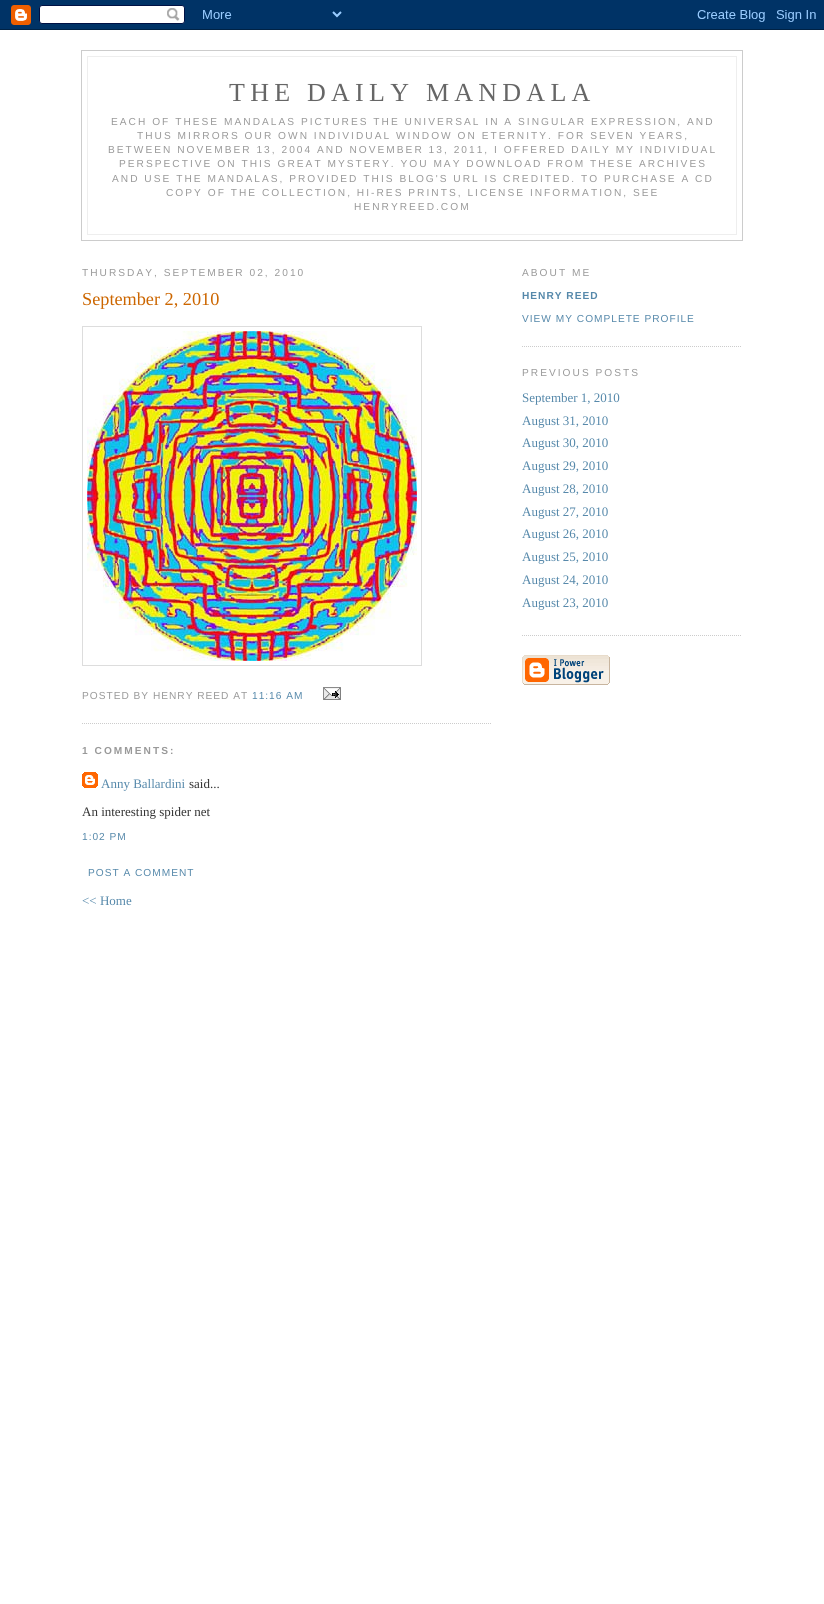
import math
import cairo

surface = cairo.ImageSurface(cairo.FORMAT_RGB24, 824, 1604)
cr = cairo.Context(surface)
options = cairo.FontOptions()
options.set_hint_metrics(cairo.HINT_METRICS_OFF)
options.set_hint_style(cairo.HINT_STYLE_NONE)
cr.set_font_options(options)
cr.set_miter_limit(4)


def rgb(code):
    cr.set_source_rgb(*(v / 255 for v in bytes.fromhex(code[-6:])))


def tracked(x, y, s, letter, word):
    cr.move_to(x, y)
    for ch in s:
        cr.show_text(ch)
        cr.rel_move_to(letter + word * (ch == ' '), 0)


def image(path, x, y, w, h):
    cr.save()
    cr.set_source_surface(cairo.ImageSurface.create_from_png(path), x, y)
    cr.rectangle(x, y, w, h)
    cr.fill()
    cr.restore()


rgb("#ffffff")
cr.paint()
image("img/1.png", 0, 0, 824, 30)
cr.rectangle(81.5, 50.5, 661, 190)
rgb("#cccccc")
cr.set_line_width(1)
cr.stroke()
for x, y, w, h, color in [
    (87, 56, 650, 1, "#eeeeee"),
    (736, 56, 1, 179, "#eeeeee"),
    (87, 56, 1, 59, "#eeeeee"),
    (87, 234, 650, 1, "#eeeeee"),
    (87, 115, 1, 120, "#eeeeee"),
]:
    rgb(color)
    cr.rectangle(x, y, w, h)
    cr.fill()
cr.new_path()
cr.move_to(82, 723.5)
cr.line_to(492, 723.5)
rgb("#cccccc")
cr.set_dash([1, 1])
cr.stroke()
cr.rectangle(82.5, 326.5, 339, 339)
rgb("#dddddd")
cr.set_dash([])
cr.stroke()
image("img/2.png", 87, 331, 330, 330)
image("img/3.png", 323, 687, 18, 13)
image("img/4.png", 82, 772, 16, 16)
cr.new_path()
cr.move_to(522, 346.5)
cr.line_to(742, 346.5)
rgb("#cccccc")
cr.set_dash([1, 1])
cr.stroke()
cr.new_path()
cr.move_to(522, 635.5)
cr.line_to(742, 635.5)
cr.stroke()
image("img/5.png", 522, 655, 88, 30)
cr.select_font_face("Liberation Serif")
cr.set_font_size(26)
rgb("#666666")
tracked(229, 101, "THE DAILY MANDALA", 5.25, 0)
cr.select_font_face("Liberation Sans")
cr.set_font_size(10.15)
rgb("#999999")
for x, y, s in [
    (111, 125, "EACH OF THESE MANDALAS PICTURES THE UNIVERSAL IN A SINGULAR EXPRESSION, AND"),
    (137, 139, "THUS MIRRORS OUR OWN INDIVIDUAL WINDOW ON ETERNITY. FOR SEVEN YEARS,"),
    (108, 153, "BETWEEN NOVEMBER 13, 2004 AND NOVEMBER 13, 2011, I OFFERED DAILY MY INDIVIDUAL"),
    (119, 167, "PERSPECTIVE ON THIS GREAT MYSTERY. YOU MAY DOWNLOAD FROM THESE ARCHIVES"),
    (112, 182, "AND USE THE MANDALAS, PROVIDED THIS BLOG'S URL IS CREDITED. TO PURCHASE A CD"),
    (166, 196, "COPY OF THE COLLECTION, HI-RES PRINTS, LICENSE INFORMATION, SEE"),
    (354, 210, "HENRYREED.COM"),
    (82, 276, "THURSDAY, SEPTEMBER 02, 2010"),
]:
    tracked(x, y, s, 2.03, 0)
cr.select_font_face("Liberation Serif")
cr.set_font_size(18.25)
rgb("#cc6600")
cr.move_to(82, 305)
cr.show_text("September 2, 2010")
cr.select_font_face("Liberation Sans")
cr.set_font_size(10.15)
rgb("#999999")
tracked(82, 699, "POSTED BY HENRY REED AT", 1, 0)
rgb("#5588aa")
tracked(252, 699, "11:16 AM", 1, 0)
cr.select_font_face("Liberation Sans", cairo.FONT_SLANT_NORMAL, cairo.FONT_WEIGHT_BOLD)
rgb("#999999")
tracked(82, 754, "1 COMMENTS:", 2.03, 0)
cr.select_font_face("Liberation Serif")
cr.set_font_size(13)
rgb("#5588aa")
cr.move_to(101, 788)
cr.show_text("Anny Ballardini")
rgb("#333333")
cr.move_to(189, 788)
cr.show_text("said...")
cr.move_to(82, 816)
cr.show_text("An interesting spider net")
cr.select_font_face("Liberation Sans")
cr.set_font_size(10.15)
rgb("#5588aa")
tracked(82, 840, "1:02 PM", 1, 0)
tracked(88, 876, "POST A COMMENT", 1, 0)
cr.select_font_face("Liberation Serif")
cr.set_font_size(13)
cr.move_to(82, 905)
cr.show_text("<< Home")
cr.select_font_face("Liberation Sans")
cr.set_font_size(10.15)
rgb("#999999")
tracked(522, 276, "ABOUT ME", 2.03, 0)
cr.select_font_face("Liberation Sans", cairo.FONT_SLANT_NORMAL, cairo.FONT_WEIGHT_BOLD)
rgb("#5588aa")
tracked(522, 299, "HENRY REED", 1, 0)
cr.select_font_face("Liberation Sans")
tracked(522, 322, "VIEW MY COMPLETE PROFILE", 1, 0)
rgb("#999999")
tracked(522, 376, "PREVIOUS POSTS", 2.03, 0)
cr.select_font_face("Liberation Serif")
cr.set_font_size(13)
rgb("#5588aa")
for x, y, s in [
    (522, 402, "September 1, 2010"),
    (522, 425, "August 31, 2010"),
    (522, 447, "August 30, 2010"),
    (522, 470, "August 29, 2010"),
    (522, 493, "August 28, 2010"),
    (522, 516, "August 27, 2010"),
    (522, 538, "August 26, 2010"),
    (522, 561, "August 25, 2010"),
    (522, 584, "August 24, 2010"),
    (522, 607, "August 23, 2010"),
]:
    cr.move_to(x, y)
    cr.show_text(s)
surface.write_to_png("page.png")
